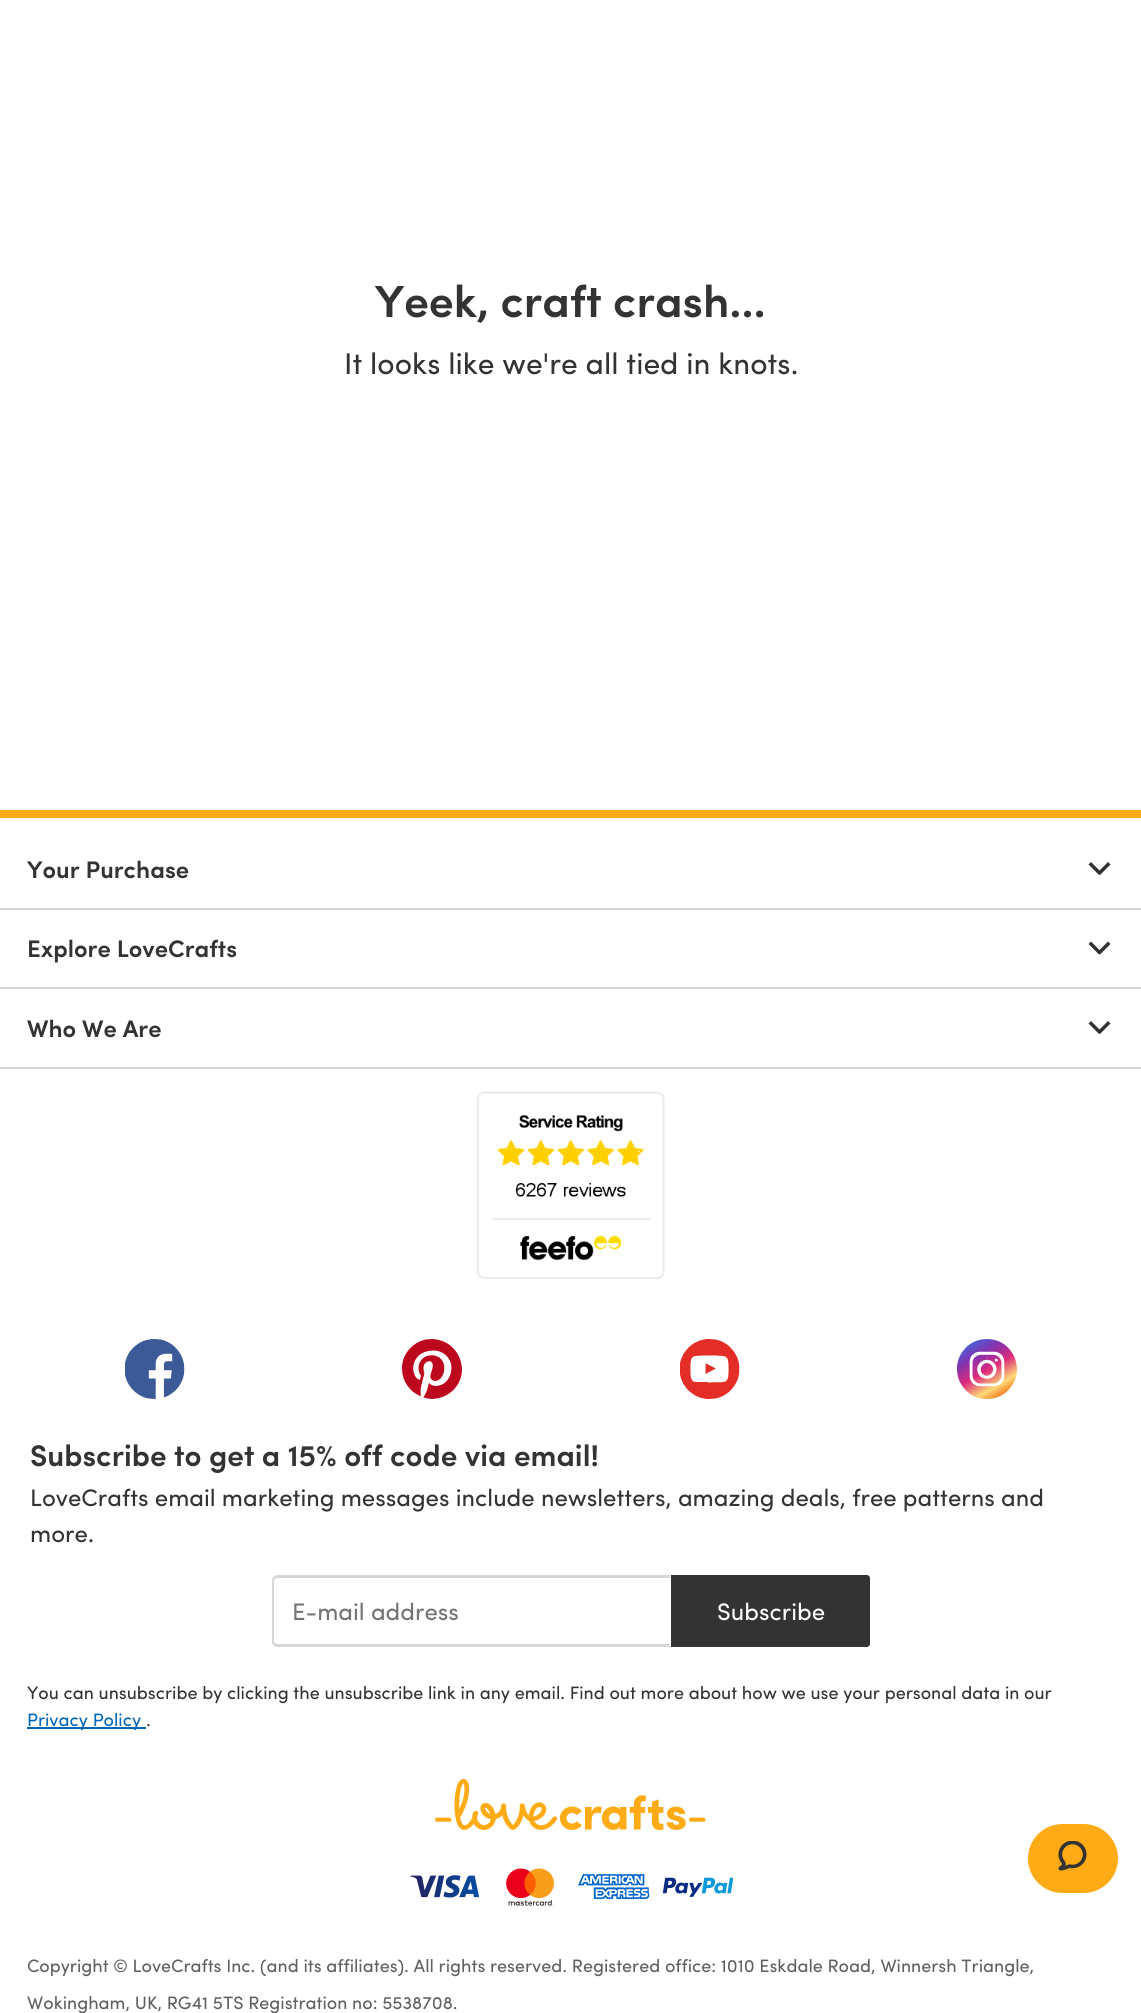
import math
import cairo

surface = cairo.ImageSurface(cairo.FORMAT_RGB24, 1141, 2013)
cr = cairo.Context(surface)
options = cairo.FontOptions()
options.set_hint_metrics(cairo.HINT_METRICS_OFF)
options.set_hint_style(cairo.HINT_STYLE_NONE)
cr.set_font_options(options)
cr.set_miter_limit(4)


def rgb(code):
    cr.set_source_rgb(*(v / 255 for v in bytes.fromhex(code[-6:])))


def rrect(x, y, w, h, r):
    cr.new_sub_path()
    for i, (u, v) in enumerate([(x + w - r, y + h - r), (x + r, y + h - r), (x + r, y + r), (x + w - r, y + r)]):
        cr.arc(u, v, r, i * math.pi / 2, (i + 1) * math.pi / 2)
    cr.close_path()


def image(path, x, y, w, h):
    cr.save()
    cr.set_source_surface(cairo.ImageSurface.create_from_png(path), x, y)
    cr.rectangle(x, y, w, h)
    cr.fill()
    cr.restore()


rgb("#ffffff")
cr.paint()
rgb("#ffab15")
cr.rectangle(0, 810, 1141, 8)
cr.fill()
rgb("#d6d6d7")
cr.rectangle(0, 908, 1141, 2)
cr.fill()
rgb("#333333")
cr.new_path()
cr.move_to(1091, 862)
cr.line_to(1101.5, 872.5)
cr.line_to(1099, 875)
cr.line_to(1088.5, 864.5)
cr.close_path()
cr.fill()
cr.new_path()
cr.move_to(1097.5, 872.5)
cr.line_to(1108, 862)
cr.line_to(1110.5, 864.5)
cr.line_to(1100, 875)
cr.close_path()
cr.fill()
rgb("#d6d6d7")
cr.rectangle(0, 987, 1141, 2)
cr.fill()
rgb("#333333")
cr.new_path()
cr.move_to(1091, 941.5)
cr.line_to(1101.5, 952)
cr.line_to(1099, 954.5)
cr.line_to(1088.5, 944)
cr.close_path()
cr.fill()
cr.new_path()
cr.move_to(1097.5, 952)
cr.line_to(1108, 941.5)
cr.line_to(1110.5, 944)
cr.line_to(1100, 954.5)
cr.close_path()
cr.fill()
rgb("#d6d6d7")
cr.rectangle(0, 1067, 1141, 2)
cr.fill()
rgb("#333333")
cr.new_path()
cr.move_to(1091, 1021)
cr.line_to(1101.5, 1031.5)
cr.line_to(1099, 1034)
cr.line_to(1088.5, 1023.5)
cr.close_path()
cr.fill()
cr.new_path()
cr.move_to(1097.5, 1031.5)
cr.line_to(1108, 1021)
cr.line_to(1110.5, 1023.5)
cr.line_to(1100, 1034)
cr.close_path()
cr.fill()
image("img/1.png", 477, 1091, 188, 188)
image("img/2.png", 125, 1339, 60, 60)
image("img/3.png", 402, 1339, 60, 60)
image("img/4.png", 680, 1339, 60, 60)
image("img/5.png", 957, 1339, 60, 60)
rgb("#d6d6d7")
cr.set_fill_rule(cairo.FILL_RULE_EVEN_ODD)
cr.new_path()
cr.move_to(278, 1575)
cr.line_to(670, 1575)
cr.line_to(670, 1647)
cr.line_to(278, 1647)
cr.curve_to(274, 1647, 272, 1644, 272, 1641)
cr.line_to(272, 1581)
cr.curve_to(272, 1578, 274, 1575, 278, 1575)
cr.close_path()
cr.move_to(278, 1578)
cr.line_to(670, 1578)
cr.line_to(670, 1644)
cr.line_to(278, 1644)
cr.curve_to(276, 1644, 274, 1643, 274, 1641)
cr.line_to(274, 1581)
cr.curve_to(274, 1579, 276, 1578, 278, 1578)
cr.close_path()
cr.fill()
rgb("#333333")
cr.new_path()
cr.move_to(671, 1575)
cr.line_to(867, 1575)
cr.curve_to(868.5, 1575, 870, 1576.5, 870, 1578)
cr.line_to(870, 1644)
cr.curve_to(870, 1645.5, 868.5, 1647, 867, 1647)
cr.line_to(671, 1647)
cr.close_path()
cr.fill()
rgb("#0066b5")
cr.rectangle(27, 1727, 119, 2)
cr.fill()
image("img/6.png", 435, 1779, 271, 51)
image("img/7.png", 410, 1875, 70, 23)
image("img/8.png", 506, 1868, 48, 38)
image("img/9.png", 578, 1874, 72, 25)
image("img/10.png", 662, 1877, 72, 20)
rgb("#ffab15")
rrect(1028, 1824, 90, 69, 34.5)
cr.fill()
image("img/11.png", 1058, 1841, 29, 30)
cr.select_font_face("Sofia")
cr.set_font_size(45)
rgb("#333333")
cr.move_to(375, 317)
cr.show_text("Yeek, craft crash…")
cr.select_font_face("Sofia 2")
cr.set_font_size(30)
cr.move_to(344, 374)
cr.show_text("It looks like we're all tied in knots.")
cr.select_font_face("Sofia")
cr.set_font_size(24)
for x, y, s in [
    (27, 878, "Your Purchase"),
    (27, 957, "Explore LoveCrafts"),
    (27, 1037, "Who We Are"),
]:
    cr.move_to(x, y)
    cr.show_text(s)
cr.set_font_size(30)
cr.move_to(30, 1466)
cr.show_text("Subscribe to get a 15% off code via email!")
cr.select_font_face("Sofia 2")
cr.set_font_size(24)
cr.move_to(30, 1506)
cr.show_text("LoveCrafts email marketing messages include newsletters, amazing deals, free patterns and")
cr.move_to(30, 1542)
cr.show_text("more.")
rgb("#757575")
cr.move_to(292, 1620)
cr.show_text("E-mail address")
rgb("#ffffff")
cr.move_to(717, 1620)
cr.show_text("Subscribe")
cr.set_font_size(18)
rgb("#333333")
cr.move_to(27, 1699)
cr.show_text("You can unsubscribe by clicking the unsubscribe link in any email. Find out more about how we use your personal data in our")
rgb("#0066b5")
cr.move_to(27, 1726)
cr.show_text("Privacy Policy")
rgb("#333333")
cr.move_to(146, 1726)
cr.show_text(".")
rgb("#5f6062")
cr.move_to(27, 1972)
cr.show_text("Copyright © LoveCrafts Inc. (and its affiliates). All rights reserved. Registered office: 1010 Eskdale Road, Winnersh Triangle,")
cr.move_to(27, 2009)
cr.show_text("Wokingham, UK, RG41 5TS Registration no: 5538708.")
surface.write_to_png("page.png")
